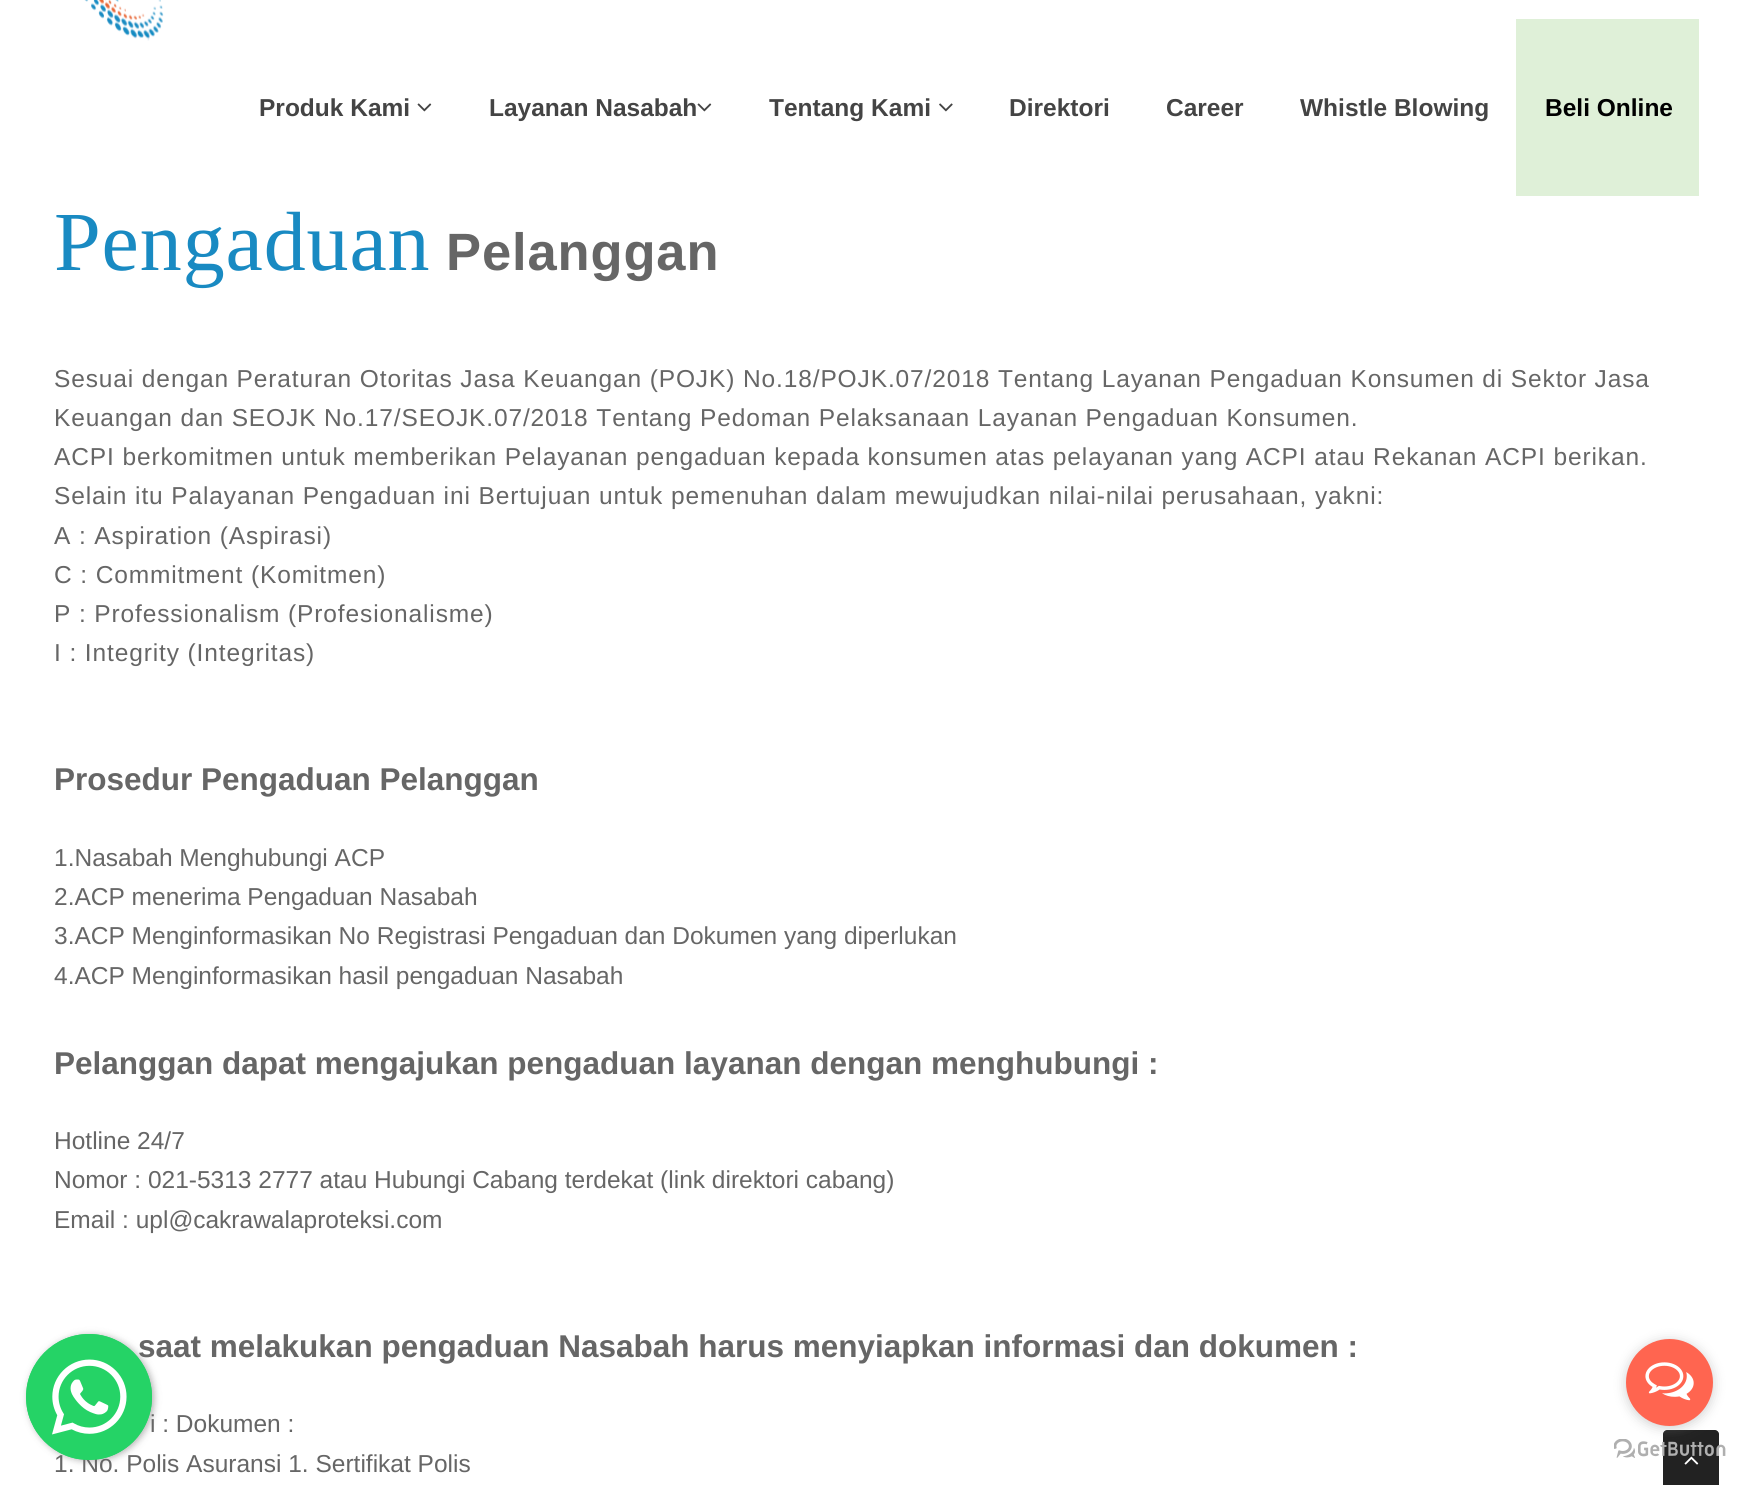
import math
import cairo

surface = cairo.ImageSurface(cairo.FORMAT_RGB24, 1752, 1485)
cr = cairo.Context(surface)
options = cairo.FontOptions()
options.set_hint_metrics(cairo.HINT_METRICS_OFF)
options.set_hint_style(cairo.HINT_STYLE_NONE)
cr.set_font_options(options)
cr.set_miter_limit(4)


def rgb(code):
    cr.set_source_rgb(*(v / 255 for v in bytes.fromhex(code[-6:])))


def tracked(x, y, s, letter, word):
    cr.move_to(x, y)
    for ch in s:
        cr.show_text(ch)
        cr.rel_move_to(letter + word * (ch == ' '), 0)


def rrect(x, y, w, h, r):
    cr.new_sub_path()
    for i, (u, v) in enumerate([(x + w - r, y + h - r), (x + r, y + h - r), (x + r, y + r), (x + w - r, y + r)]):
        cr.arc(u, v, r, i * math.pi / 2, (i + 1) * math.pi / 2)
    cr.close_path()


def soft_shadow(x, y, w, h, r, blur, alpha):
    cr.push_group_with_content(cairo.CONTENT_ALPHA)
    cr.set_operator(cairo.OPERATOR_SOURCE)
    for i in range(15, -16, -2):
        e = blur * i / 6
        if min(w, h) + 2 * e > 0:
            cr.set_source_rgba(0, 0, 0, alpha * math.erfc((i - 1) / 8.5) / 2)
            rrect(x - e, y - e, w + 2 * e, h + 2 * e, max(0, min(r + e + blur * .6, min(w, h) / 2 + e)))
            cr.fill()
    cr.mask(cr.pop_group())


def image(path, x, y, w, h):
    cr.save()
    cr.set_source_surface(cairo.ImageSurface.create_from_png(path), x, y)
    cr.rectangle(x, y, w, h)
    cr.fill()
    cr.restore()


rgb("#ffffff")
cr.paint()
image("img/1.png", 84, 0, 80, 41)
image("img/2.png", 417, 103, 15, 9)
image("img/2.png", 697, 103, 15, 9)
image("img/3.png", 939, 103, 14, 9)
rgb("#dff0d8")
cr.rectangle(1516, 19, 183, 177)
cr.fill()
rgb("#222222")
cr.new_path()
cr.move_to(1667, 1430)
cr.line_to(1715, 1430)
cr.curve_to(1717, 1430, 1719, 1432, 1719, 1434)
cr.line_to(1719, 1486)
cr.line_to(1663, 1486)
cr.line_to(1663, 1434)
cr.curve_to(1663, 1432, 1665, 1430, 1667, 1430)
cr.close_path()
cr.fill()
image("img/7.png", 1684, 1456, 15, 9)
image("img/5.png", 1614, 1439, 112, 19)
rgb("#888888")
soft_shadow(1626, 1341, 87, 87, 43.5, 6, 0.4)
rgb("#ff6550")
cr.arc(1669.5, 1382.5, 43.5, 0, 2 * math.pi)
cr.fill()
image("img/4.png", 1645, 1362, 49, 39)
rgb("#3c3c3c")
soft_shadow(28, 1335, 126, 126, 63, 3.5, 0.4)
cr.select_font_face("Liberation Sans", cairo.FONT_SLANT_NORMAL, cairo.FONT_WEIGHT_BOLD)
cr.set_font_size(24.5)
rgb("#444444")
for x, y, s in [
    (259, 116, "Produk Kami"),
    (489, 116, "Layanan Nasabah"),
    (769, 116, "Tentang Kami"),
    (1009, 116, "Direktori"),
    (1166, 116, "Career"),
    (1300, 116, "Whistle Blowing"),
]:
    cr.move_to(x, y)
    cr.show_text(s)
rgb("#000000")
cr.move_to(1545, 116)
cr.show_text("Beli Online")
cr.select_font_face("Liberation Serif")
cr.set_font_size(84)
rgb("#198ac2")
tracked(54, 270, "Pengaduan", 0.88, 0)
cr.select_font_face("Liberation Sans", cairo.FONT_SLANT_NORMAL, cairo.FONT_WEIGHT_BOLD)
cr.set_font_size(52.5)
rgb("#666666")
tracked(446, 270, "Pelanggan", 0.88, 0)
cr.select_font_face("Liberation Sans")
cr.set_font_size(24.5)
for x, y, s in [
    (54, 387, "Sesuai dengan Peraturan Otoritas Jasa Keuangan (POJK) No.18/POJK.07/2018 Tentang Layanan Pengaduan Konsumen di Sektor Jasa"),
    (54, 426, "Keuangan dan SEOJK No.17/SEOJK.07/2018 Tentang Pedoman Pelaksanaan Layanan Pengaduan Konsumen."),
    (54, 465, "ACPI berkomitmen untuk memberikan Pelayanan pengaduan kepada konsumen atas pelayanan yang ACPI atau Rekanan ACPI berikan."),
    (54, 504, "Selain itu Palayanan Pengaduan ini Bertujuan untuk pemenuhan dalam mewujudkan nilai-nilai perusahaan, yakni:"),
    (54, 544, "A : Aspiration (Aspirasi)"),
    (54, 583, "C : Commitment (Komitmen)"),
    (54, 622, "P : Professionalism (Profesionalisme)"),
    (54, 661, "I : Integrity (Integritas)"),
]:
    tracked(x, y, s, 0.88, 0)
cr.select_font_face("Liberation Sans", cairo.FONT_SLANT_NORMAL, cairo.FONT_WEIGHT_BOLD)
cr.set_font_size(31.5)
cr.move_to(54, 790)
cr.show_text("Prosedur Pengaduan Pelanggan")
cr.select_font_face("Liberation Sans")
cr.set_font_size(24.5)
for x, y, s in [
    (54, 866, "1.Nasabah Menghubungi ACP"),
    (54, 905, "2.ACP menerima Pengaduan Nasabah"),
    (54, 944, "3.ACP Menginformasikan No Registrasi Pengaduan dan Dokumen yang diperlukan"),
    (54, 984, "4.ACP Menginformasikan hasil pengaduan Nasabah"),
]:
    cr.move_to(x, y)
    cr.show_text(s)
cr.select_font_face("Liberation Sans", cairo.FONT_SLANT_NORMAL, cairo.FONT_WEIGHT_BOLD)
cr.set_font_size(31.5)
cr.move_to(54, 1074)
cr.show_text("Pelanggan dapat mengajukan pengaduan layanan dengan menghubungi :")
cr.select_font_face("Liberation Sans")
cr.set_font_size(24.5)
for x, y, s in [
    (54, 1149, "Hotline 24/7"),
    (54, 1188, "Nomor : 021-5313 2777 atau Hubungi Cabang terdekat (link direktori cabang)"),
    (54, 1228, "Email : upl@cakrawalaproteksi.com"),
]:
    cr.move_to(x, y)
    cr.show_text(s)
cr.select_font_face("Liberation Sans", cairo.FONT_SLANT_NORMAL, cairo.FONT_WEIGHT_BOLD)
cr.set_font_size(31.5)
cr.move_to(138, 1357)
cr.show_text("saat melakukan pengaduan Nasabah harus menyiapkan informasi dan dokumen :")
cr.select_font_face("Liberation Sans")
cr.set_font_size(24.5)
cr.move_to(150, 1432)
cr.show_text("i : Dokumen :")
cr.move_to(54, 1472)
cr.show_text("1. No. Polis Asuransi 1. Sertifikat Polis")
rgb("#25d366")
cr.new_path()
cr.arc(89, 1397, 63, 0, 2 * math.pi)
cr.fill()
image("img/6.png", 26, 1334, 126, 126)
surface.write_to_png("page.png")
